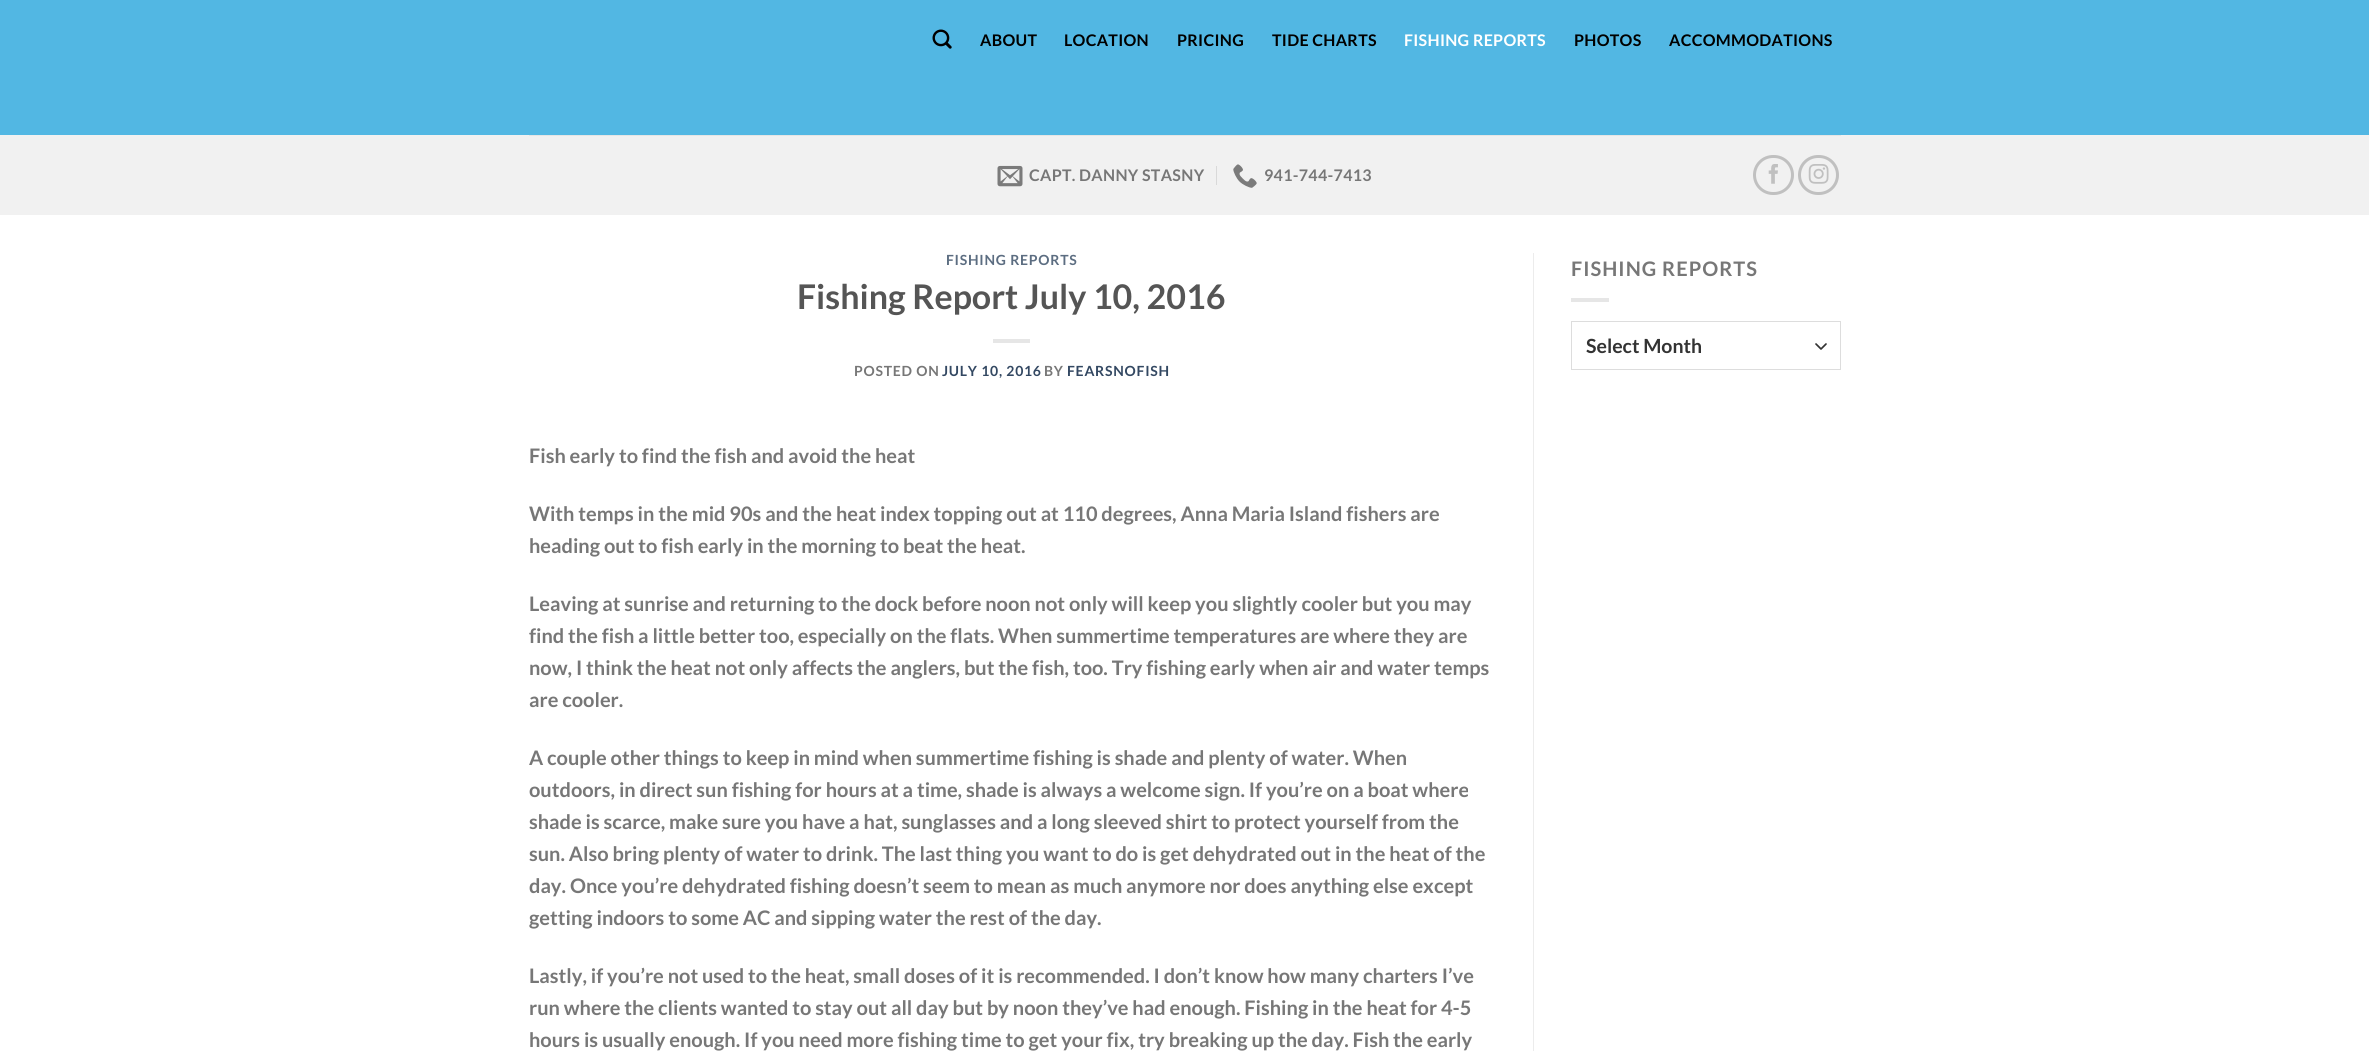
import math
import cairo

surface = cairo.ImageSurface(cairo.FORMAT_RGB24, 2369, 1051)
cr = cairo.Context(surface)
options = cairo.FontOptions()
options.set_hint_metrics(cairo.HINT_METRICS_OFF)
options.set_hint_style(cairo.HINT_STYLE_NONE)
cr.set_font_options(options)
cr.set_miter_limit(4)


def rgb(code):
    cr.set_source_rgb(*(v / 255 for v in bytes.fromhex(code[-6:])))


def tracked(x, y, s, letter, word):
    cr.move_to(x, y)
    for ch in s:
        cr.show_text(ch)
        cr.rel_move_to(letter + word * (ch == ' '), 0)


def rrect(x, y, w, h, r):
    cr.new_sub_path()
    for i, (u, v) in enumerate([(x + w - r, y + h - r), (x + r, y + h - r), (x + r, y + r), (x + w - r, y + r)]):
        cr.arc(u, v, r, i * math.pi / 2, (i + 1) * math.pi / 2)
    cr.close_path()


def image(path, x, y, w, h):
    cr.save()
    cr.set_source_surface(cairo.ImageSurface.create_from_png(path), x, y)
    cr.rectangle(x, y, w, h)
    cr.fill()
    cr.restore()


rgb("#ffffff")
cr.paint()
rgb("#52b7e3")
cr.rectangle(0, 0, 2369, 135)
cr.fill()
image("img/1.png", 932, 29, 20, 20)
rgb("#f1f1f1")
cr.rectangle(0, 135, 2369, 80)
cr.fill()
rgb("#e5e5e5")
cr.rectangle(529, 135, 1312, 1)
cr.fill()
image("img/2.png", 997, 165, 26, 22)
rgb("#d9d9d9")
cr.rectangle(1216, 166, 1, 19)
cr.fill()
image("img/3.png", 1233, 164, 24, 24)
rrect(1754.5, 156.5, 38, 37, 18.5)
rgb("#c0c0c0")
cr.set_line_width(3)
cr.stroke()
image("img/4.png", 1768, 164, 10, 20)
rrect(1799.5, 156.5, 38, 37, 18.5)
cr.stroke()
image("img/5.png", 1808, 164, 21, 20)
for x, y, w, h, color in [
    (993, 339, 37, 4, "#e6e6e6"),
    (1533, 253, 1, 798, "#ececec"),
    (1571, 298, 38, 4, "#e6e6e6"),
]:
    rgb(color)
    cr.rectangle(x, y, w, h)
    cr.fill()
cr.new_path()
cr.move_to(1816, 344)
cr.line_to(1821, 349)
cr.line_to(1826, 344)
rgb("#333333")
cr.set_line_width(1.7)
cr.set_line_cap(cairo.LINE_CAP_ROUND)
cr.set_line_join(cairo.LINE_JOIN_ROUND)
cr.stroke()
cr.rectangle(1571.5, 321.5, 269, 48)
rgb("#dddddd")
cr.set_line_width(1)
cr.set_line_cap(cairo.LINE_CAP_BUTT)
cr.set_line_join(cairo.LINE_JOIN_MITER)
cr.stroke()
cr.select_font_face("Lato", cairo.FONT_SLANT_NORMAL, cairo.FONT_WEIGHT_BOLD)
cr.set_font_size(16)
rgb("#000000")
for x, y, s in [
    (980, 46, "ABOUT"),
    (1064, 46, "LOCATION"),
    (1177, 46, "PRICING"),
    (1272, 46, "TIDE CHARTS"),
]:
    tracked(x, y, s, 0.3, 0)
rgb("#ffffff")
tracked(1404, 46, "FISHING REPORTS", 0.3, 0)
rgb("#000000")
tracked(1574, 46, "PHOTOS", 0.3, 0)
tracked(1669, 46, "ACCOMMODATIONS", 0.3, 0)
rgb("#777777")
tracked(1029, 181, "CAPT. DANNY STASNY", 0.3, 0)
tracked(1264, 181, "941-744-7413", 0.3, 0)
cr.set_font_size(14)
rgb("#5c6d81")
tracked(946, 265, "FISHING REPORTS", 0.75, 0)
cr.set_font_size(34)
rgb("#555555")
cr.move_to(797, 309)
cr.show_text("Fishing Report July 10, 2016")
cr.set_font_size(14)
rgb("#777777")
tracked(854, 376, "POSTED ON", 0.75, 0)
rgb("#334862")
tracked(942, 376, "JULY 10, 2016", 0.75, 0)
rgb("#777777")
tracked(1044, 376, "BY", 0.75, 0)
rgb("#334862")
tracked(1067, 376, "FEARSNOFISH", 0.75, 0)
cr.set_font_size(20)
rgb("#777777")
for x, y, s in [
    (529, 463, "Fish early to find the fish and avoid the heat"),
    (529, 521, "With temps in the mid 90s and the heat index topping out at 110 degrees, Anna Maria Island fishers are"),
    (529, 553, "heading out to fish early in the morning to beat the heat."),
    (529, 611, "Leaving at sunrise and returning to the dock before noon not only will keep you slightly cooler but you may"),
    (529, 643, "find the fish a little better too, especially on the flats. When summertime temperatures are where they are"),
    (529, 675, "now, I think the heat not only affects the anglers, but the fish, too. Try fishing early when air and water temps"),
    (529, 707, "are cooler."),
    (529, 765, "A couple other things to keep in mind when summertime fishing is shade and plenty of water. When"),
    (529, 797, "outdoors, in direct sun fishing for hours at a time, shade is always a welcome sign. If you’re on a boat where"),
    (529, 829, "shade is scarce, make sure you have a hat, sunglasses and a long sleeved shirt to protect yourself from the"),
    (529, 861, "sun. Also bring plenty of water to drink. The last thing you want to do is get dehydrated out in the heat of the"),
    (529, 893, "day. Once you’re dehydrated fishing doesn’t seem to mean as much anymore nor does anything else except"),
    (529, 925, "getting indoors to some AC and sipping water the rest of the day."),
    (529, 983, "Lastly, if you’re not used to the heat, small doses of it is recommended. I don’t know how many charters I’ve"),
    (529, 1015, "run where the clients wanted to stay out all day but by noon they’ve had enough. Fishing in the heat for 4-5"),
    (529, 1047, "hours is usually enough. If you need more fishing time to get your fix, try breaking up the day. Fish the early"),
]:
    cr.move_to(x, y)
    cr.show_text(s)
tracked(1571, 276, "FISHING REPORTS", 1, 0)
cr.set_font_size(19.5)
rgb("#333333")
cr.move_to(1586, 353)
cr.show_text("Select Month")
surface.write_to_png("page.png")
